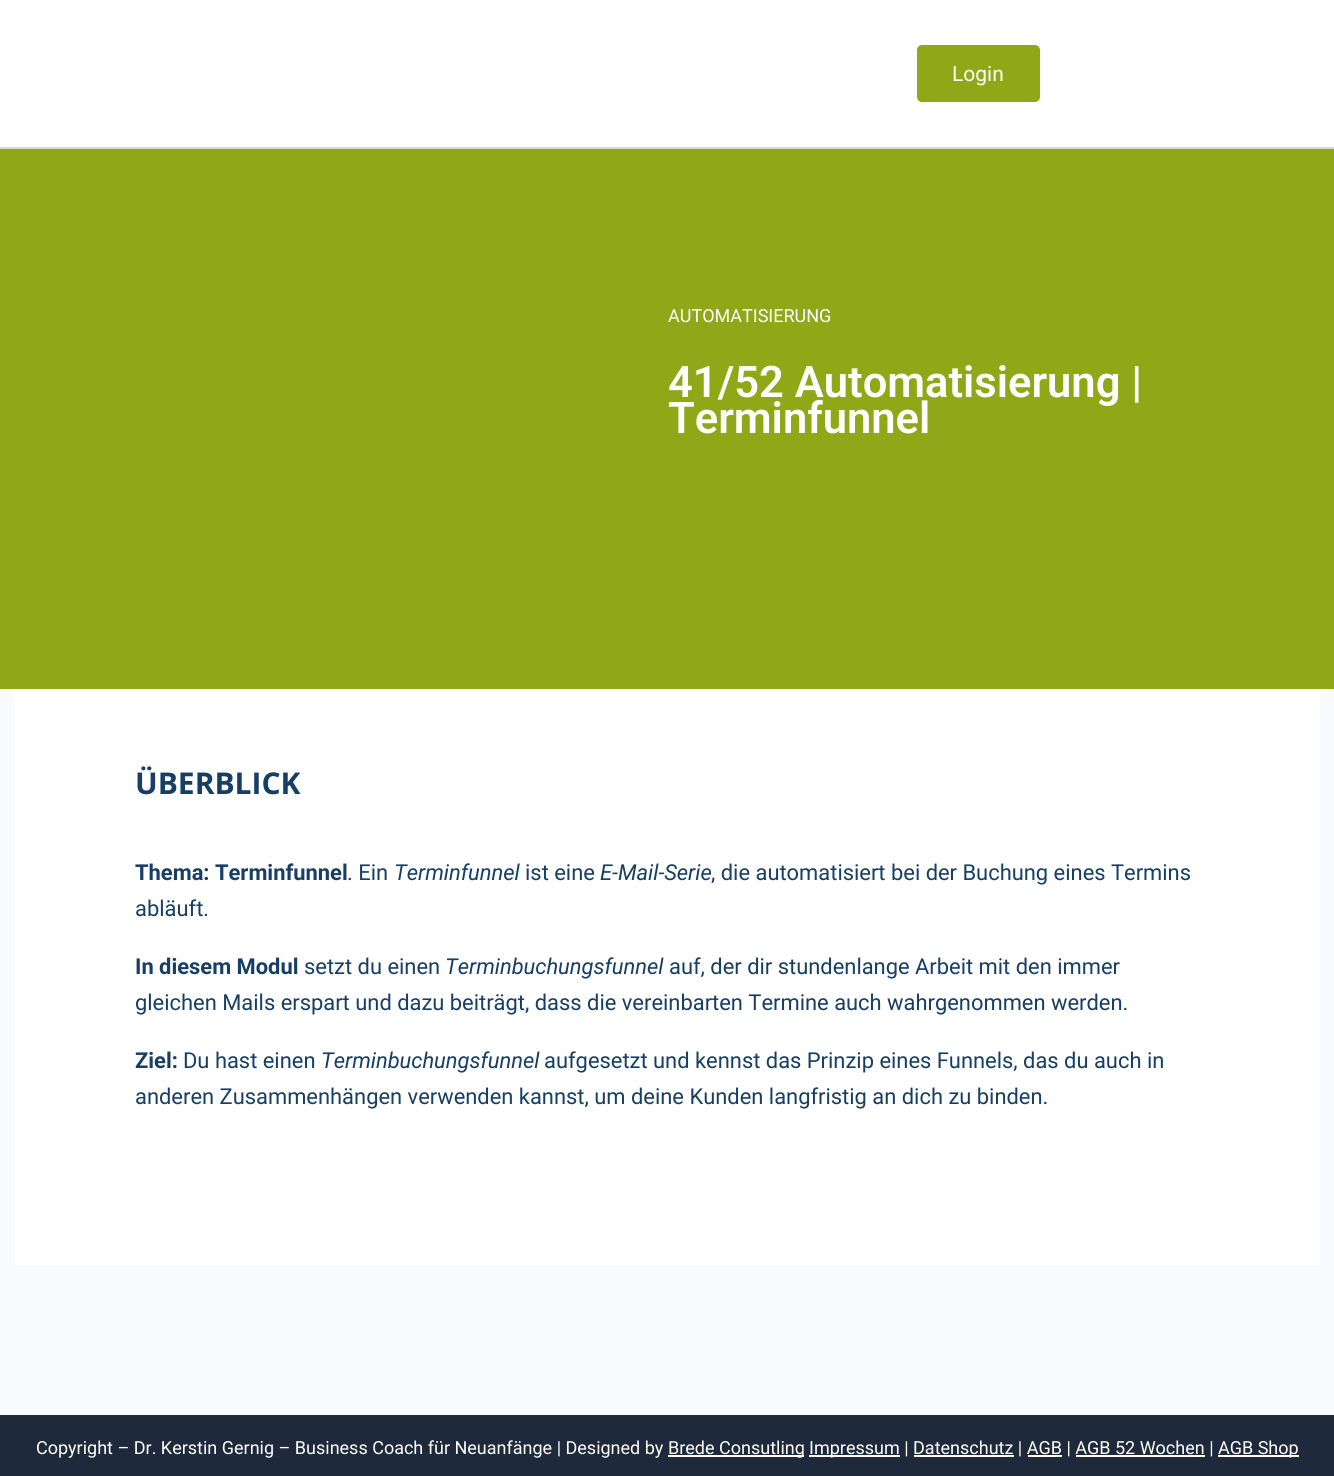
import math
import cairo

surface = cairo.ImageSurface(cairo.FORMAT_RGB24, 1334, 1476)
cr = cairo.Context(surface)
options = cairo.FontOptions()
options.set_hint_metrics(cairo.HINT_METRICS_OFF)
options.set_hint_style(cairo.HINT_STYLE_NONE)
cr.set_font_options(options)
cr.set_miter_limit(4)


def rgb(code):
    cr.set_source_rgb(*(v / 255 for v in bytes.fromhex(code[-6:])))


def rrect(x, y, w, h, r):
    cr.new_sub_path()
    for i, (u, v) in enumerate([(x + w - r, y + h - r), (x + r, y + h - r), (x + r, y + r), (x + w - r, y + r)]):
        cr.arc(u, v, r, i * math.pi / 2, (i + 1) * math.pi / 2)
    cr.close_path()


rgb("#ffffff")
cr.paint()
rgb("#d6d6d6")
cr.rectangle(0, 147, 1334, 2)
cr.fill()
rgb("#90a818")
rrect(917, 45, 123, 57, 5)
cr.fill()
for x, y, w, h, color in [
    (0, 149, 1334, 540, "#90a818"),
    (0, 689, 1334, 726, "#f9fafb"),
    (15, 689, 1305, 576, "#ffffff"),
    (0, 1415, 1334, 61, "#1e293b"),
    (668, 1455, 136, 2, "#ffffff"),
    (809, 1455, 91, 2, "#ffffff"),
    (914, 1455, 100, 2, "#ffffff"),
    (1028, 1455, 34, 2, "#ffffff"),
    (1076, 1455, 129, 2, "#ffffff"),
    (1218, 1455, 81, 2, "#ffffff"),
]:
    rgb(color)
    cr.rectangle(x, y, w, h)
    cr.fill()
cr.select_font_face("Roboto")
cr.set_font_size(21)
cr.move_to(952, 81)
cr.show_text("Login")
cr.set_font_size(18)
cr.move_to(668, 322)
cr.show_text("AUTOMATISIERUNG")
cr.select_font_face("Roboto SemiBold")
cr.set_font_size(43.5)
cr.move_to(668, 397)
cr.show_text("41/52 Automatisierung |")
cr.move_to(668, 433)
cr.show_text("Terminfunnel")
cr.select_font_face("Open Sans", cairo.FONT_SLANT_NORMAL, cairo.FONT_WEIGHT_BOLD)
cr.set_font_size(30)
rgb("#173e64")
cr.move_to(135, 794)
cr.show_text("ÜBERBLICK")
cr.select_font_face("Roboto", cairo.FONT_SLANT_NORMAL, cairo.FONT_WEIGHT_BOLD)
cr.set_font_size(21.9)
cr.move_to(135, 880)
cr.show_text("Thema: Terminfunnel")
cr.select_font_face("Roboto")
cr.move_to(347, 880)
cr.show_text(". Ein")
cr.select_font_face("Roboto", cairo.FONT_SLANT_ITALIC)
cr.move_to(394, 880)
cr.show_text("Terminfunnel")
cr.select_font_face("Roboto")
cr.move_to(525, 880)
cr.show_text("ist eine")
cr.select_font_face("Roboto", cairo.FONT_SLANT_ITALIC)
cr.move_to(600, 880)
cr.show_text("E-Mail-Serie")
cr.select_font_face("Roboto")
cr.move_to(711, 880)
cr.show_text(", die automatisiert bei der Buchung eines Termins")
cr.move_to(135, 916)
cr.show_text("abläuft.")
cr.select_font_face("Roboto", cairo.FONT_SLANT_NORMAL, cairo.FONT_WEIGHT_BOLD)
cr.move_to(135, 974)
cr.show_text("In diesem Modul")
cr.select_font_face("Roboto")
cr.move_to(304, 974)
cr.show_text("setzt du einen")
cr.select_font_face("Roboto", cairo.FONT_SLANT_ITALIC)
cr.move_to(445, 974)
cr.show_text("Terminbuchungsfunnel")
cr.select_font_face("Roboto")
cr.move_to(669, 974)
cr.show_text("auf, der dir stundenlange Arbeit mit den immer")
cr.move_to(135, 1010)
cr.show_text("gleichen Mails erspart und dazu beiträgt, dass die vereinbarten Termine auch wahrgenommen werden.")
cr.select_font_face("Roboto", cairo.FONT_SLANT_NORMAL, cairo.FONT_WEIGHT_BOLD)
cr.move_to(135, 1068)
cr.show_text("Ziel:")
cr.select_font_face("Roboto")
cr.move_to(183, 1068)
cr.show_text("Du hast einen")
cr.select_font_face("Roboto", cairo.FONT_SLANT_ITALIC)
cr.move_to(321, 1068)
cr.show_text("Terminbuchungsfunnel")
cr.select_font_face("Roboto")
cr.move_to(544, 1068)
cr.show_text("aufgesetzt und kennst das Prinzip eines Funnels, das du auch in")
cr.move_to(135, 1104)
cr.show_text("anderen Zusammenhängen verwenden kannst, um deine Kunden langfristig an dich zu binden.")
cr.set_font_size(18)
rgb("#ffffff")
for x, y, s in [
    (36, 1454, "Copyright – Dr. Kerstin Gernig – Business Coach für Neuanfänge | Designed by"),
    (668, 1454, "Brede Consutling"),
    (809, 1454, "Impressum | Datenschutz | AGB | AGB 52 Wochen |"),
    (1218, 1454, "AGB Shop"),
]:
    cr.move_to(x, y)
    cr.show_text(s)
surface.write_to_png("page.png")
